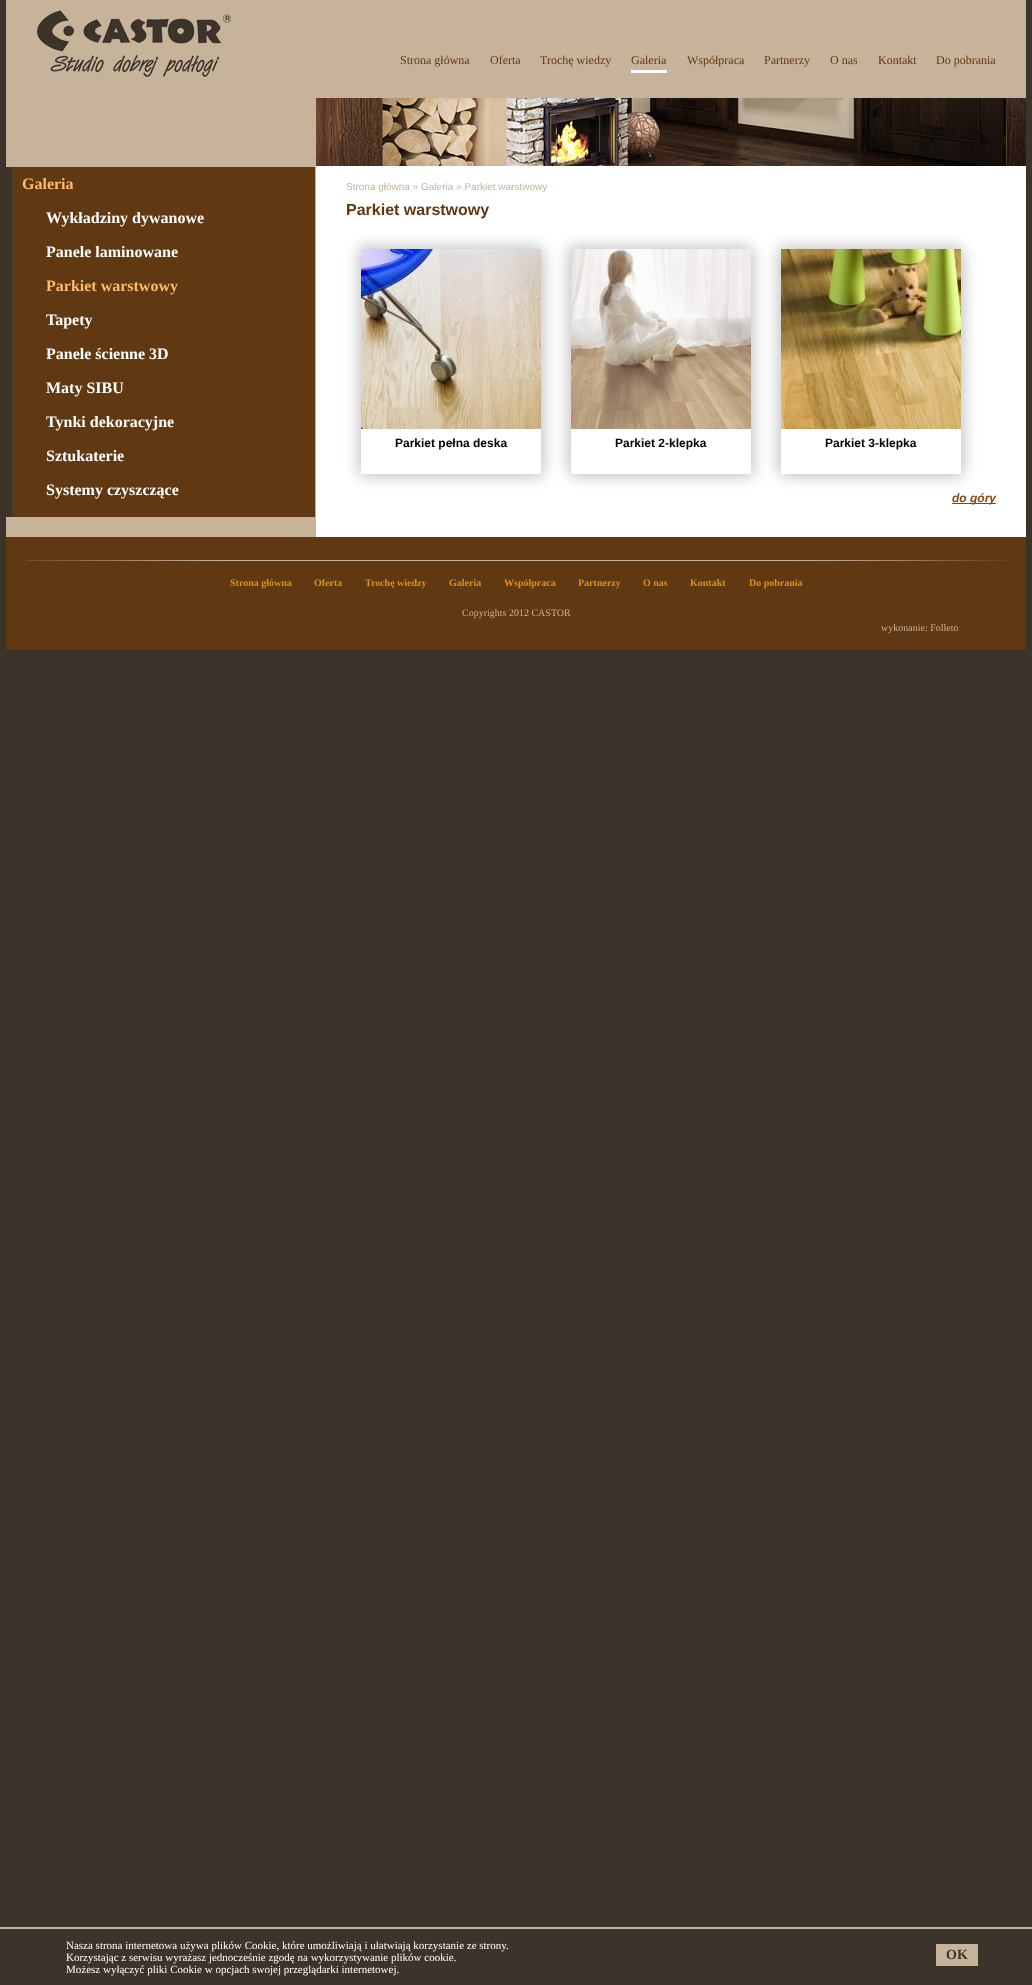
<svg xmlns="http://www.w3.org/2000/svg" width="1032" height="1985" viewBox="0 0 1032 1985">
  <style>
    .t1 { font: 12px Liberation Serif; fill: #603913; }
    .t2 { font: bold 16px Liberation Serif; fill: #ffba6b; }
    .t3 { font: bold 16px Liberation Serif; fill: #fff; }
    .t4 { font: 10px Liberation Sans; fill: #c7b29a; }
    .t5 { font: bold 16px Liberation Sans; fill: #603913; }
    .t6 { font: bold 12px Liberation Sans; fill: #000; }
    .t7 { font: italic bold 12px Liberation Sans; fill: #8b4513; }
    .t8 { font: bold 10px Liberation Serif; fill: #db9211; }
    .t9 { font: 10px Liberation Serif; fill: #c7b29a; }
    .t10 { font: 11px Liberation Serif; fill: #fff; }
    .t11 { font: bold 14px Liberation Serif; fill: #3c332b; }
  </style>
  <defs>
    <clipPath id="clip1"><path d="M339 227H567V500H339ZM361 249H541V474H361Z" clip-rule="evenodd"/></clipPath>
    <clipPath id="clip2"><path d="M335 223H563V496H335ZM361 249H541V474H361Z" clip-rule="evenodd"/></clipPath>
    <clipPath id="clip3"><path d="M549 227H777V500H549ZM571 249H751V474H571Z" clip-rule="evenodd"/></clipPath>
    <clipPath id="clip4"><path d="M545 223H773V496H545ZM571 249H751V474H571Z" clip-rule="evenodd"/></clipPath>
    <clipPath id="clip5"><path d="M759 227H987V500H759ZM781 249H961V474H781Z" clip-rule="evenodd"/></clipPath>
    <clipPath id="clip6"><path d="M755 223H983V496H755ZM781 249H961V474H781Z" clip-rule="evenodd"/></clipPath>
  </defs>
  <rect width="100%" height="100%" fill="#3c332b"/>
  <rect x="6" y="0" width="1020" height="537" fill="#c7b29a"/>
  <image x="37" y="10" width="194" height="67" href="images/1.png"/>
  <text x="400" y="64" class="t1">Strona główna</text>
  <text x="490" y="64" class="t1">Oferta</text>
  <text x="540" y="64" class="t1">Trochę wiedzy</text>
  <rect x="631" y="70" width="36" height="3" fill="#fff"/>
  <text x="631" y="64" class="t1">Galeria</text>
  <text x="687" y="64" class="t1">Współpraca</text>
  <text x="764" y="64" class="t1">Partnerzy</text>
  <text x="830" y="64" class="t1">O nas</text>
  <text x="878" y="64" class="t1">Kontakt</text>
  <text x="936" y="64" class="t1">Do pobrania</text>
  <rect x="316" y="166" width="710" height="371" fill="#fff"/>
  <image x="6" y="167" width="309" height="350" href="images/2.png"/>
  <text x="22" y="189" class="t2">Galeria</text>
  <text x="46" y="223" class="t3">Wykładziny dywanowe</text>
  <text x="46" y="257" class="t3">Panele laminowane</text>
  <text x="46" y="291" class="t2">Parkiet warstwowy</text>
  <text x="46" y="325" class="t3">Tapety</text>
  <text x="46" y="359" class="t3">Panele ścienne 3D</text>
  <text x="46" y="393" class="t3">Maty SIBU</text>
  <text x="46" y="427" class="t3">Tynki dekoracyjne</text>
  <text x="46" y="461" class="t3">Sztukaterie</text>
  <text x="46" y="495" class="t3">Systemy czyszczące</text>
  <image x="316" y="98" width="710" height="68" href="images/3.png"/>
  <text x="346" y="190" class="t4">Strona główna » Galeria » Parkiet warstwowy</text>
  <text x="346" y="215" class="t5">Parkiet warstwowy</text>
  <g clip-path="url(#clip1)">
    <rect x="363" y="251" width="180" height="225" fill="#ccc" filter="blur(7.5px)"/>
  </g>
  <g clip-path="url(#clip2)">
    <rect x="359" y="247" width="180" height="225" fill="#ccc" filter="blur(7.5px)"/>
  </g>
  <image x="361" y="249" width="180" height="180" href="images/4.png"/>
  <text x="395" y="447" class="t6">Parkiet pełna deska</text>
  <g clip-path="url(#clip3)">
    <rect x="573" y="251" width="180" height="225" fill="#ccc" filter="blur(7.5px)"/>
  </g>
  <g clip-path="url(#clip4)">
    <rect x="569" y="247" width="180" height="225" fill="#ccc" filter="blur(7.5px)"/>
  </g>
  <image x="571" y="249" width="180" height="180" href="images/5.png"/>
  <text x="615" y="447" class="t6">Parkiet 2-klepka</text>
  <g clip-path="url(#clip5)">
    <rect x="783" y="251" width="180" height="225" fill="#ccc" filter="blur(7.5px)"/>
  </g>
  <g clip-path="url(#clip6)">
    <rect x="779" y="247" width="180" height="225" fill="#ccc" filter="blur(7.5px)"/>
  </g>
  <image x="781" y="249" width="180" height="180" href="images/6.png"/>
  <text x="825" y="447" class="t6">Parkiet 3-klepka</text>
  <rect x="952" y="503" width="44" height="1" fill="#8b4513"/>
  <text x="952" y="502" class="t7">do góry</text>
  <rect x="6" y="537" width="1020" height="113" fill="#603913"/>
  <image x="26" y="560" width="980" height="1" href="images/7.png"/>
  <text x="230" y="586" class="t8">Strona główna</text>
  <text x="314" y="586" class="t8">Oferta</text>
  <text x="365" y="586" class="t8">Trochę wiedzy</text>
  <text x="449" y="586" class="t8">Galeria</text>
  <text x="504" y="586" class="t8">Współpraca</text>
  <text x="578" y="586" class="t8">Partnerzy</text>
  <text x="643" y="586" class="t8">O nas</text>
  <text x="690" y="586" class="t8">Kontakt</text>
  <text x="749" y="586" class="t8">Do pobrania</text>
  <text x="462" y="616" class="t9">Copyrights 2012 CASTOR</text>
  <text x="881" y="631" class="t9">wykonanie: Folleto</text>
  <rect x="0" y="1927" width="1032" height="2" fill="#c7b29a"/>
  <text x="66" y="1949" class="t10">Nasza strona internetowa używa plików Cookie, które umożliwiają i ułatwiają korzystanie ze strony.</text>
  <text x="66" y="1961" class="t10">Korzystając z serwisu wyrażasz jednocześnie zgodę na wykorzystywanie plików cookie.</text>
  <text x="66" y="1973" class="t10">Możesz wyłączyć pliki Cookie w opcjach swojej przeglądarki internetowej.</text>
  <rect x="936" y="1944" width="42" height="22" fill="#c7b29a"/>
  <text x="946" y="1959" class="t11">OK</text>
</svg>
